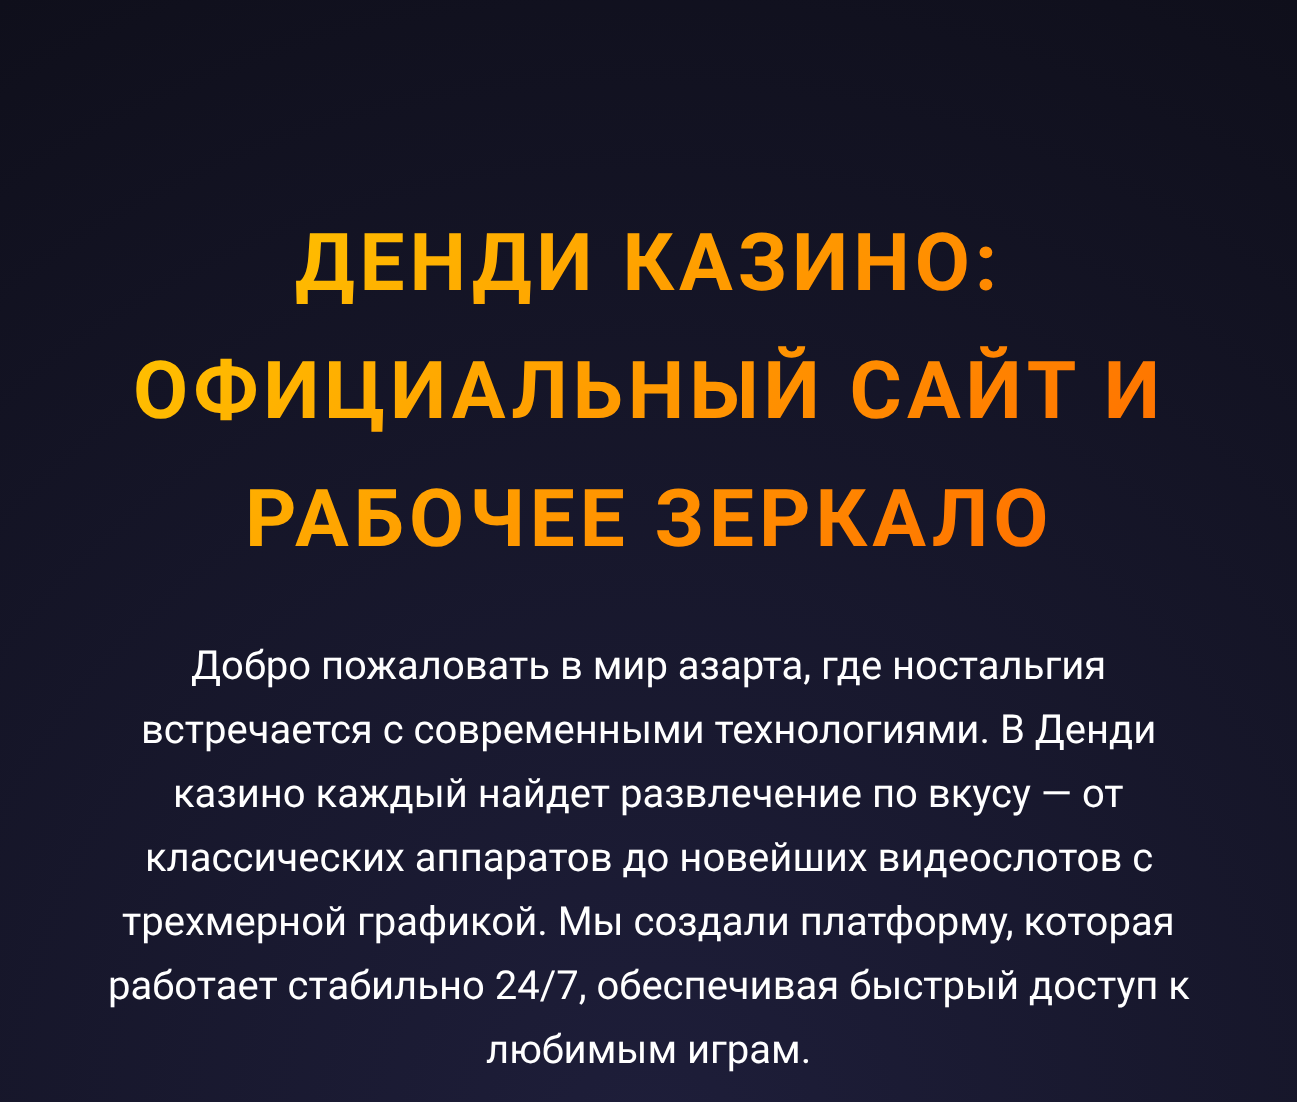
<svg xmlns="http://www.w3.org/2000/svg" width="1297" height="1102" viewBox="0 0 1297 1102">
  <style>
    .t1 { font: bold 80px Roboto; letter-spacing: 5px; fill: url(#g1); }
    .t2 { font: 40px Roboto; fill: #fff; }
  </style>
  <defs>
    <linearGradient id="g1" gradientUnits="userSpaceOnUse" x1="278" y1="22" x2="1019" y2="762"><stop offset="0" stop-color="#fc0"/><stop offset="1" stop-color="#f60"/></linearGradient>
    <radialGradient id="g2" gradientUnits="userSpaceOnUse" cx="649" cy="1143" r="1314"><stop offset="0" stop-color="#1e1e3a"/><stop offset="1" stop-color="#0f0f1b"/></radialGradient>
  </defs>
  <rect width="100%" height="100%" fill="#fff"/>
  <rect x="0" y="0" width="1297" height="1102" fill="url(#g2)"/>
  <text x="295" y="290" class="t1">ДЕНДИ КАЗИНО:</text>
  <text x="133" y="418" class="t1">ОФИЦИАЛЬНЫЙ САЙТ И</text>
  <text x="245" y="546" class="t1">РАБОЧЕЕ ЗЕРКАЛО</text>
  <text x="191" y="679" class="t2">Добро пожаловать в мир азарта, где ностальгия</text>
  <text x="141" y="743" class="t2">встречается с современными технологиями. В Денди</text>
  <text x="173" y="807" class="t2">казино каждый найдет развлечение по вкусу — от</text>
  <text x="145" y="871" class="t2">классических аппаратов до новейших видеослотов с</text>
  <text x="122" y="935" class="t2">трехмерной графикой. Мы создали платформу, которая</text>
  <text x="108" y="999" class="t2">работает стабильно 24/7, обеспечивая быстрый доступ к</text>
  <text x="486" y="1063" class="t2">любимым играм.</text>
</svg>
